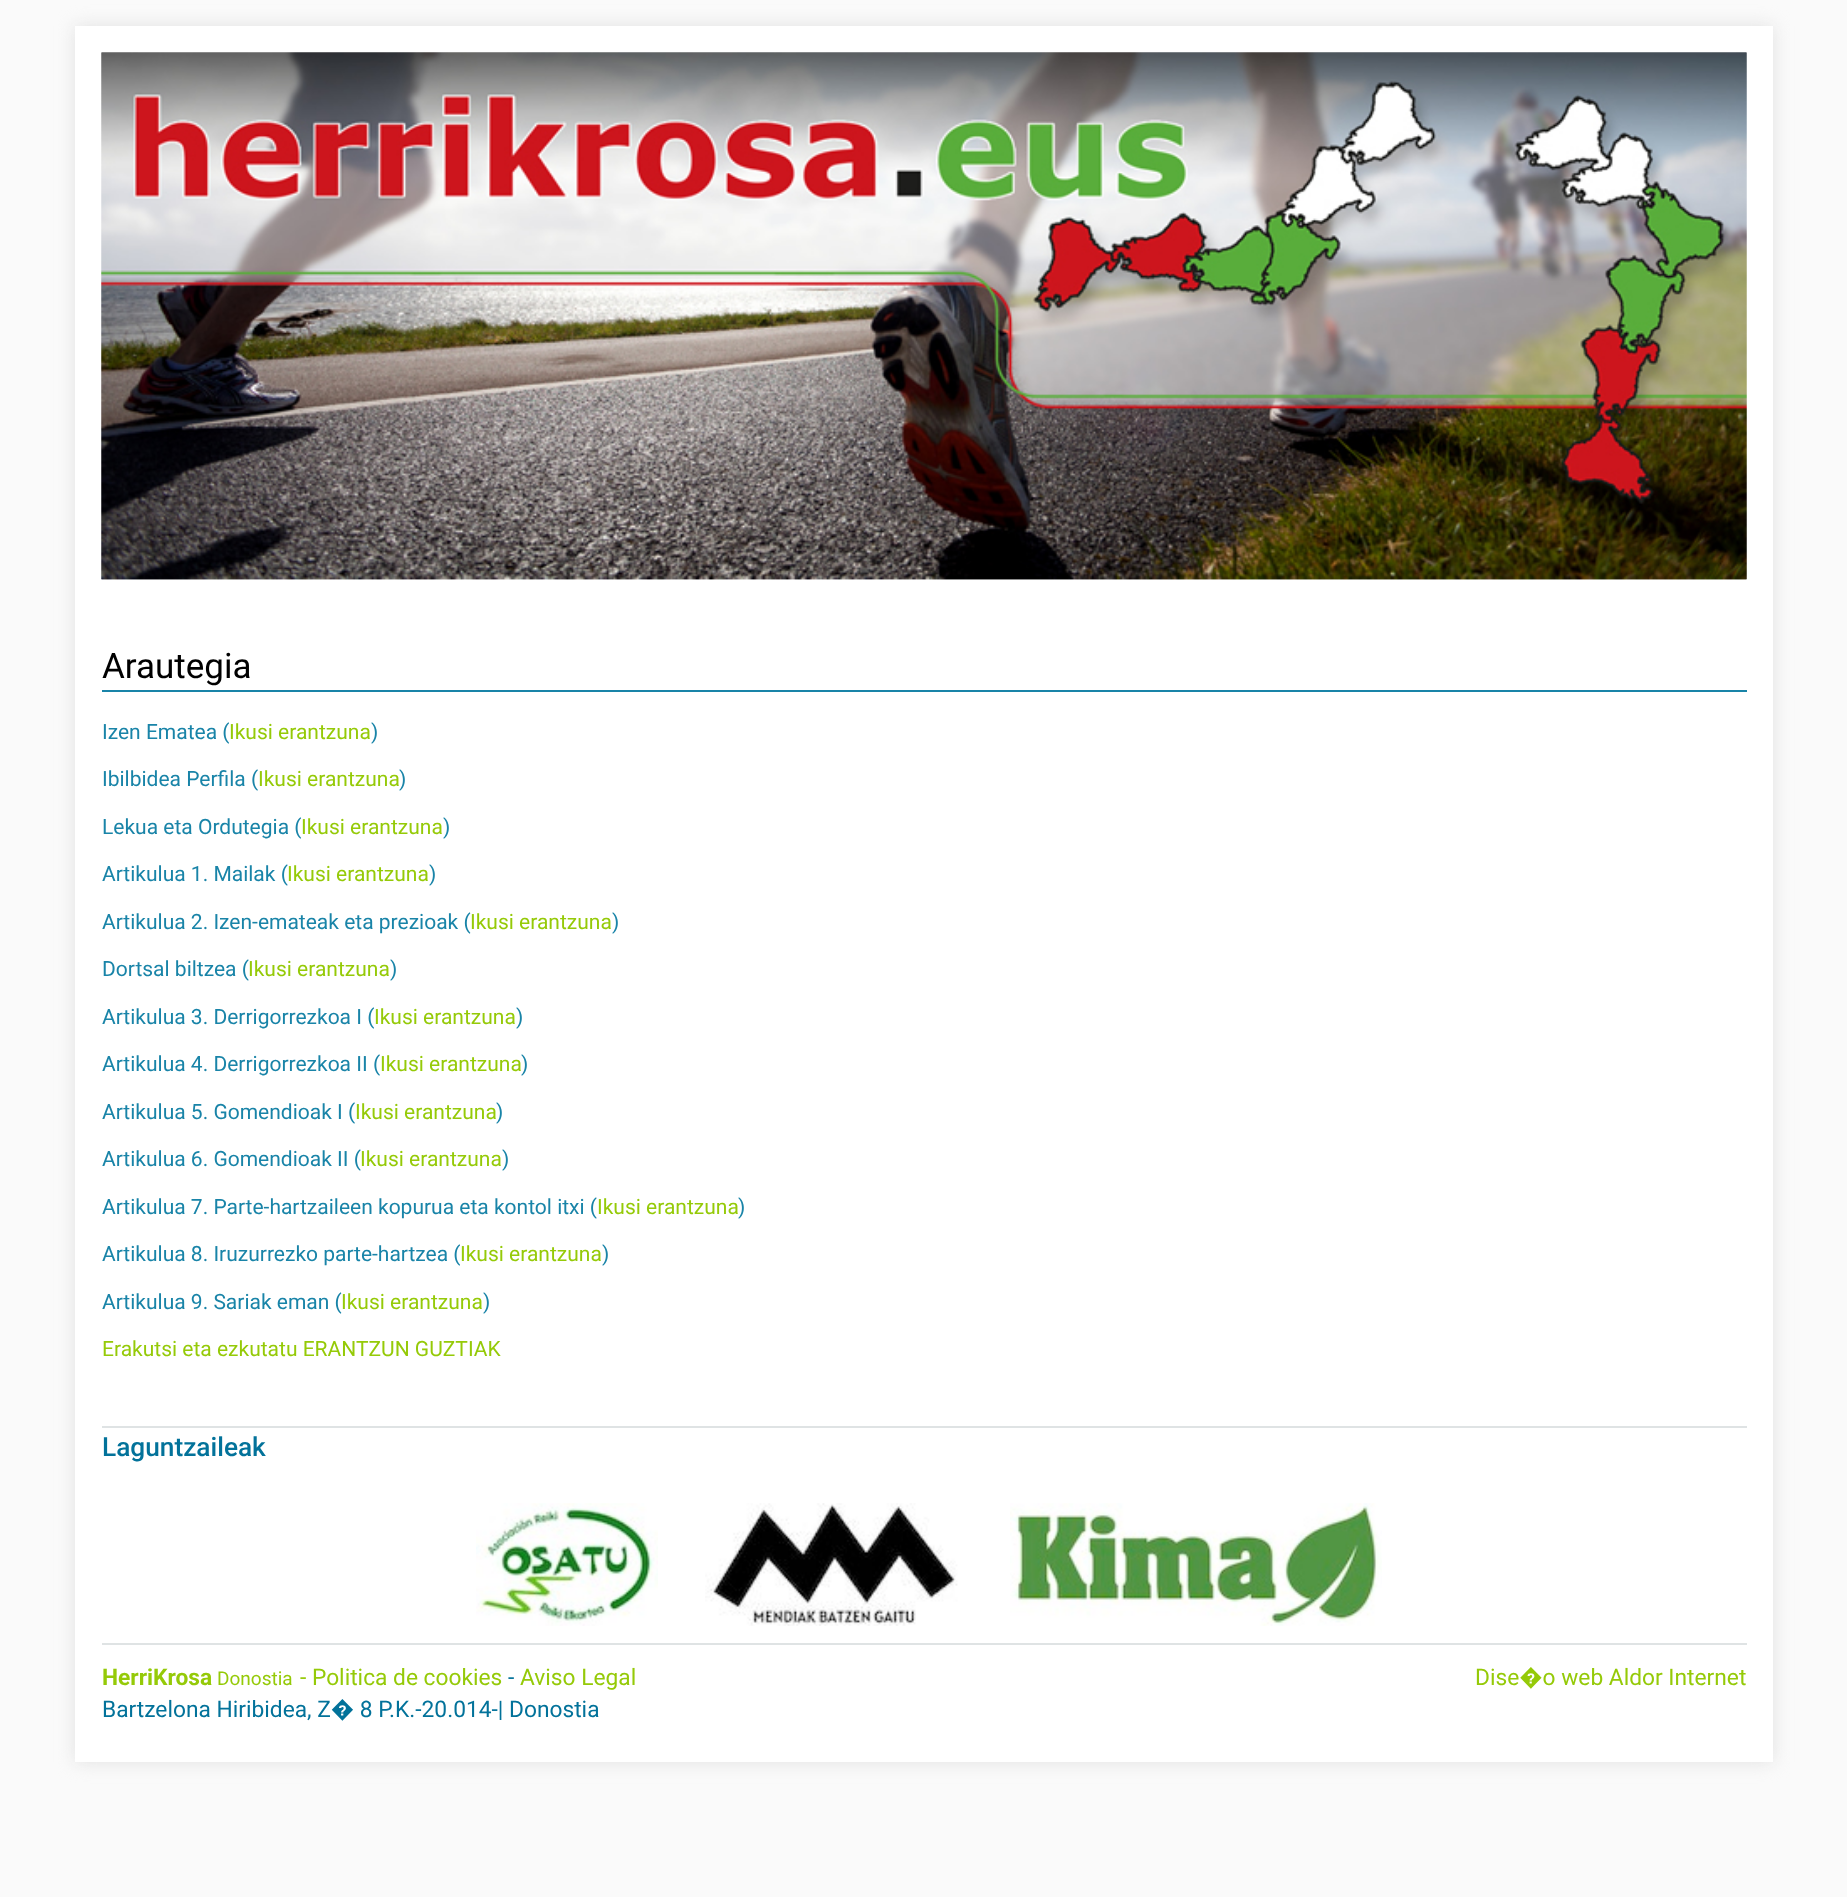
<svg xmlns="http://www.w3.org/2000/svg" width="1847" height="1897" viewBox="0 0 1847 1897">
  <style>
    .t1 { font: 35px Roboto; fill: #000; }
    .t2 { font: 21px Roboto; fill: #1984a8; }
    .t3 { font: 21px Roboto; fill: #95ca08; }
    .t4 { font: 500 26.25px Roboto; fill: #02729a; }
    .t5 { font: bold 22.75px Roboto; fill: #95ca08; }
    .t6 { font: 19px Roboto; fill: #95ca08; }
    .t7 { font: 22.75px Roboto; fill: #95ca08; }
    .t8 { font: 22.75px Roboto; fill: #02729a; }
  </style>
  <rect width="100%" height="100%" fill="#fafafa"/>
  <rect x="75" y="26" width="1698" height="1736" fill="#e1e1e1" filter="blur(9px)"/>
  <rect x="75" y="26" width="1698" height="1736" fill="#fff"/>
  <image x="101" y="52" width="1646" height="528" href="images/1.png"/>
  <image x="101" y="52" width="1646" height="528" href="images/2.png"/>
  <rect x="102" y="690" width="1645" height="2" fill="#1984a8"/>
  <text x="102" y="678" class="t1">Arautegia</text>
  <text x="102" y="739" class="t2">Izen Ematea (</text>
  <text x="229" y="739" class="t3">Ikusi erantzuna</text>
  <text x="371" y="739" class="t2">)</text>
  <text x="102" y="786" class="t2">Ibilbidea Perfila (</text>
  <text x="258" y="786" class="t3">Ikusi erantzuna</text>
  <text x="399" y="786" class="t2">)</text>
  <text x="102" y="834" class="t2">Lekua eta Ordutegia (</text>
  <text x="301" y="834" class="t3">Ikusi erantzuna</text>
  <text x="443" y="834" class="t2">)</text>
  <text x="102" y="881" class="t2">Artikulua 1. Mailak (</text>
  <text x="287" y="881" class="t3">Ikusi erantzuna</text>
  <text x="429" y="881" class="t2">)</text>
  <text x="102" y="929" class="t2">Artikulua 2. Izen-emateak eta prezioak (</text>
  <text x="470" y="929" class="t3">Ikusi erantzuna</text>
  <text x="612" y="929" class="t2">)</text>
  <text x="102" y="976" class="t2">Dortsal biltzea (</text>
  <text x="248" y="976" class="t3">Ikusi erantzuna</text>
  <text x="390" y="976" class="t2">)</text>
  <text x="102" y="1024" class="t2">Artikulua 3. Derrigorrezkoa I (</text>
  <text x="374" y="1024" class="t3">Ikusi erantzuna</text>
  <text x="516" y="1024" class="t2">)</text>
  <text x="102" y="1071" class="t2">Artikulua 4. Derrigorrezkoa II (</text>
  <text x="380" y="1071" class="t3">Ikusi erantzuna</text>
  <text x="521" y="1071" class="t2">)</text>
  <text x="102" y="1119" class="t2">Artikulua 5. Gomendioak I (</text>
  <text x="355" y="1119" class="t3">Ikusi erantzuna</text>
  <text x="496" y="1119" class="t2">)</text>
  <text x="102" y="1166" class="t2">Artikulua 6. Gomendioak II (</text>
  <text x="360" y="1166" class="t3">Ikusi erantzuna</text>
  <text x="502" y="1166" class="t2">)</text>
  <text x="102" y="1214" class="t2">Artikulua 7. Parte-hartzaileen kopurua eta kontol itxi (</text>
  <text x="597" y="1214" class="t3">Ikusi erantzuna</text>
  <text x="738" y="1214" class="t2">)</text>
  <text x="102" y="1261" class="t2">Artikulua 8. Iruzurrezko parte-hartzea (</text>
  <text x="460" y="1261" class="t3">Ikusi erantzuna</text>
  <text x="602" y="1261" class="t2">)</text>
  <text x="102" y="1309" class="t2">Artikulua 9. Sariak eman (</text>
  <text x="341" y="1309" class="t3">Ikusi erantzuna</text>
  <text x="483" y="1309" class="t2">)</text>
  <text x="102" y="1356" class="t3">Erakutsi eta ezkutatu ERANTZUN GUZTIAK</text>
  <rect x="102" y="1426" width="1645" height="2" fill="#dfe3e4"/>
  <rect x="102" y="1643" width="1645" height="2" fill="#dfe3e4"/>
  <text x="102" y="1456" class="t4">Laguntzaileak</text>
  <image x="476" y="1503" width="182" height="123" href="images/3.png"/>
  <image x="705" y="1503" width="253" height="123" href="images/4.png"/>
  <image x="1010" y="1503" width="372" height="123" href="images/5.png"/>
  <text x="102" y="1685" class="t5">HerriKrosa</text>
  <text x="217" y="1685" class="t6">Donostia</text>
  <text x="300" y="1685" class="t7">- Politica de cookies</text>
  <text x="508" y="1685" class="t8">-</text>
  <text x="520" y="1685" class="t7">Aviso Legal</text>
  <text x="102" y="1717" class="t8">Bartzelona Hiribidea, Z� 8 P.K.-20.014-| Donostia</text>
  <text x="1475" y="1685" class="t7">Dise�o web Aldor Internet</text>
</svg>
